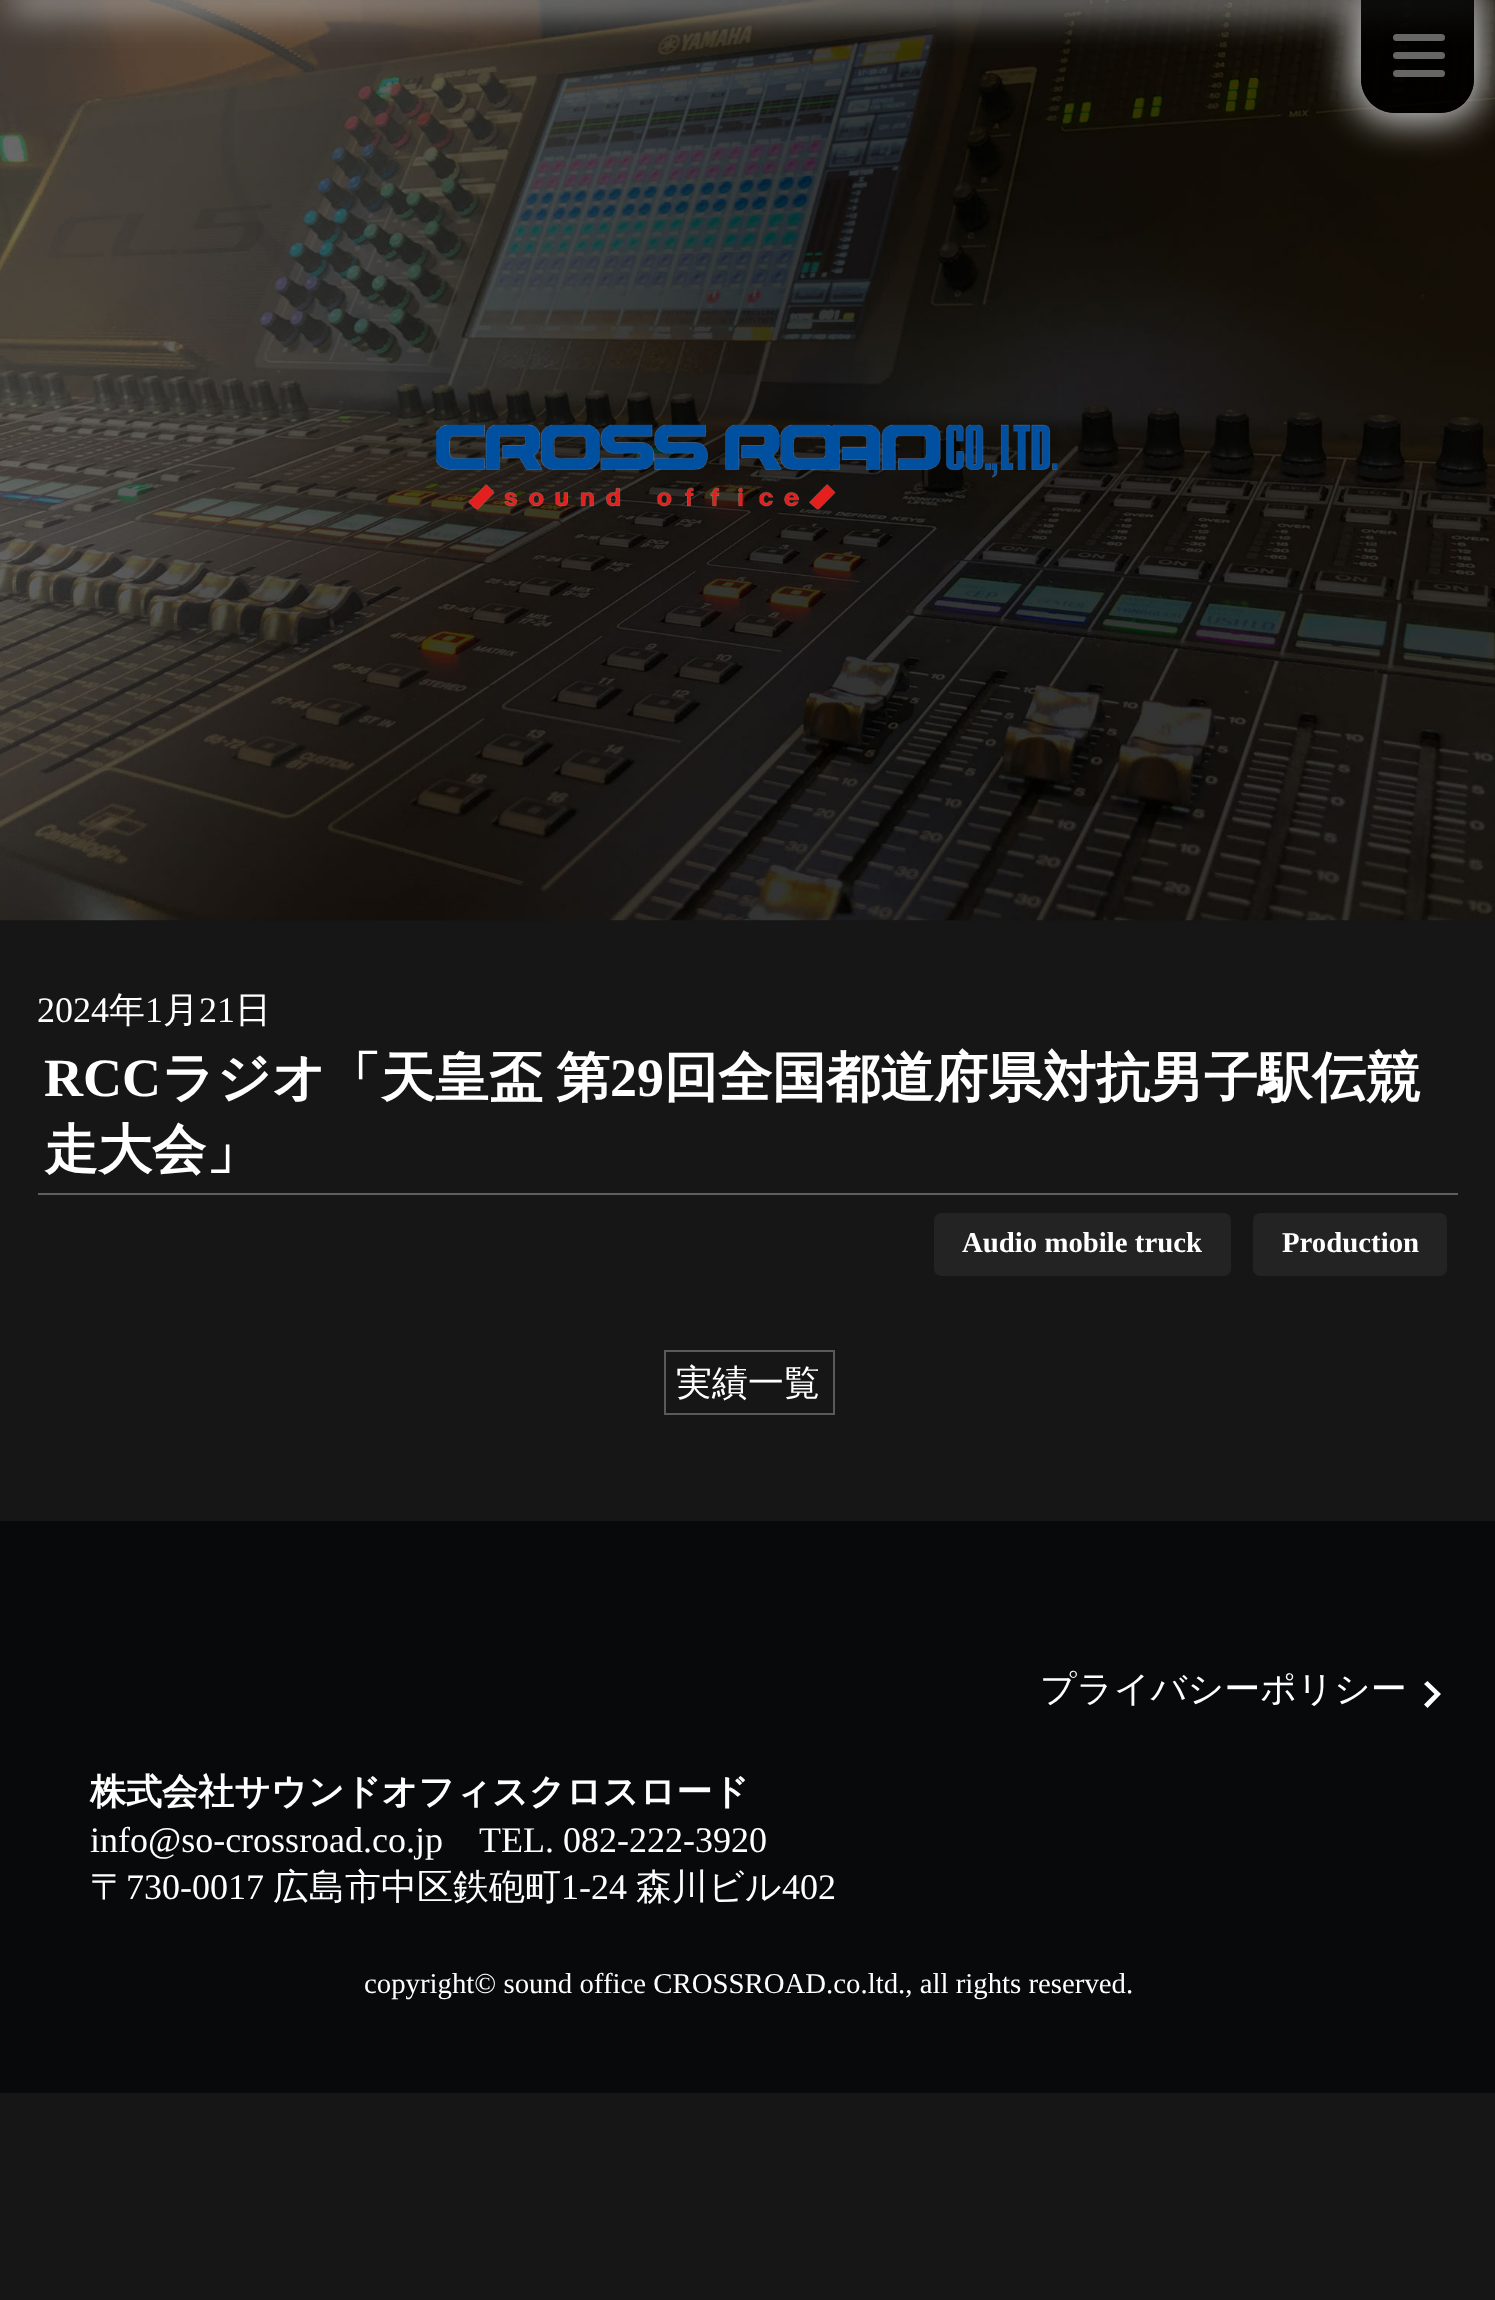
<svg xmlns="http://www.w3.org/2000/svg" width="1495" height="2300" viewBox="0 0 1495 2300">
  <style>
    .t1 { font: 36px Liberation Serif; fill: #fff; }
    .t2 { font: 500 36px WenQuanYi Zen Hei; fill: #fff; }
    .t3 { font: bold 54px Liberation Serif; fill: #fff; }
    .t4 { font: bold 54px WenQuanYi Zen Hei; fill: #fff; }
    .t5 { font: bold 28.8px Liberation Serif; fill: #fff; }
    .t6 { font: bold 36px WenQuanYi Zen Hei; fill: #fff; }
    .t7 { font: 28.8px Liberation Serif; fill: #fff; }
  </style>
  <defs>
    <clipPath id="clip1"><path d="M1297 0H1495V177H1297ZM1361 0H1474V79C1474 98 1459 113 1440 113H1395C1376 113 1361 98 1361 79Z" clip-rule="evenodd"/></clipPath>
  </defs>
  <rect width="100%" height="100%" fill="#161616"/>
  <image x="0" y="0" width="1495" height="921" href="images/1.png"/>
  <rect x="9" y="-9" width="1481" height="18" fill="#c9c9c9" filter="blur(18px)"/>
  <g clip-path="url(#clip1)">
    <rect x="1352" y="-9" width="131" height="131" rx="43" fill="#c9c9c9" filter="blur(18px)"/>
  </g>
  <path d="M1361 0H1474V79C1474 98 1459 113 1440 113H1395C1376 113 1361 98 1361 79Z" fill="#000000d9"/>
  <rect x="1393" y="34" width="52" height="7" rx="3.5" fill="#666"/>
  <rect x="1393" y="52" width="52" height="7" rx="3.5" fill="#666"/>
  <rect x="1393" y="70" width="52" height="7" rx="3.5" fill="#666"/>
  <image x="435" y="424" width="623" height="86" href="images/2.png"/>
  <text x="37" y="1022" class="t1">2024</text>
  <text x="109" y="1022" class="t2">年</text>
  <text x="145" y="1022" class="t1">1</text>
  <text x="163" y="1022" class="t2">月</text>
  <text x="199" y="1022" class="t1">21</text>
  <text x="235" y="1022" class="t2">日</text>
  <rect x="38" y="1193" width="1420" height="2" fill="#5f5f5f"/>
  <text x="44" y="1096" class="t3">RCC</text>
  <text x="161" y="1096" word-spacing="-3" class="t4">ラジオ「天皇盃 第</text>
  <text x="610" y="1096" class="t3">29</text>
  <text x="664" y="1096" class="t4">回全国都道府県対抗男子駅伝競</text>
  <text x="44" y="1168" class="t4">走大会」</text>
  <rect x="934" y="1213" width="297" height="63" rx="7" fill="#232323"/>
  <text x="962" y="1252" class="t5">Audio mobile truck</text>
  <rect x="1253" y="1213" width="194" height="63" rx="7" fill="#232323"/>
  <text x="1282" y="1252" class="t5">Production</text>
  <rect x="665" y="1351" width="169" height="63" fill="none" stroke="#5a5a5a" stroke-width="2"/>
  <text x="676" y="1395" class="t2">実績一覧</text>
  <rect x="0" y="1521" width="1495" height="572" fill="#08090a"/>
  <text x="1040" y="1701" class="t2">プライバシーポリシー</text>
  <path d="M1434.5 1694L1424 1684L1427.5 1681L1441 1694L1427.5 1708L1424 1704.5Z" fill="#fff"/>
  <text x="90" y="1804" class="t6">株式会社サウンドオフィスクロスロード</text>
  <text x="90" y="1852" class="t1">info@so-crossroad.co.jp</text>
  <text x="479" y="1852" class="t1">TEL. 082-222-3920</text>
  <text x="90" y="1899" class="t2">〒</text>
  <text x="126" y="1899" class="t1">730-0017</text>
  <text x="273" y="1899" class="t2">広島市中区鉄砲町</text>
  <text x="561" y="1899" class="t1">1-24</text>
  <text x="636" y="1899" class="t2">森川ビル</text>
  <text x="782" y="1899" class="t1">402</text>
  <text x="364" y="1993" class="t7">copyright© sound office CROSSROAD.co.ltd., all rights reserved.</text>
</svg>
